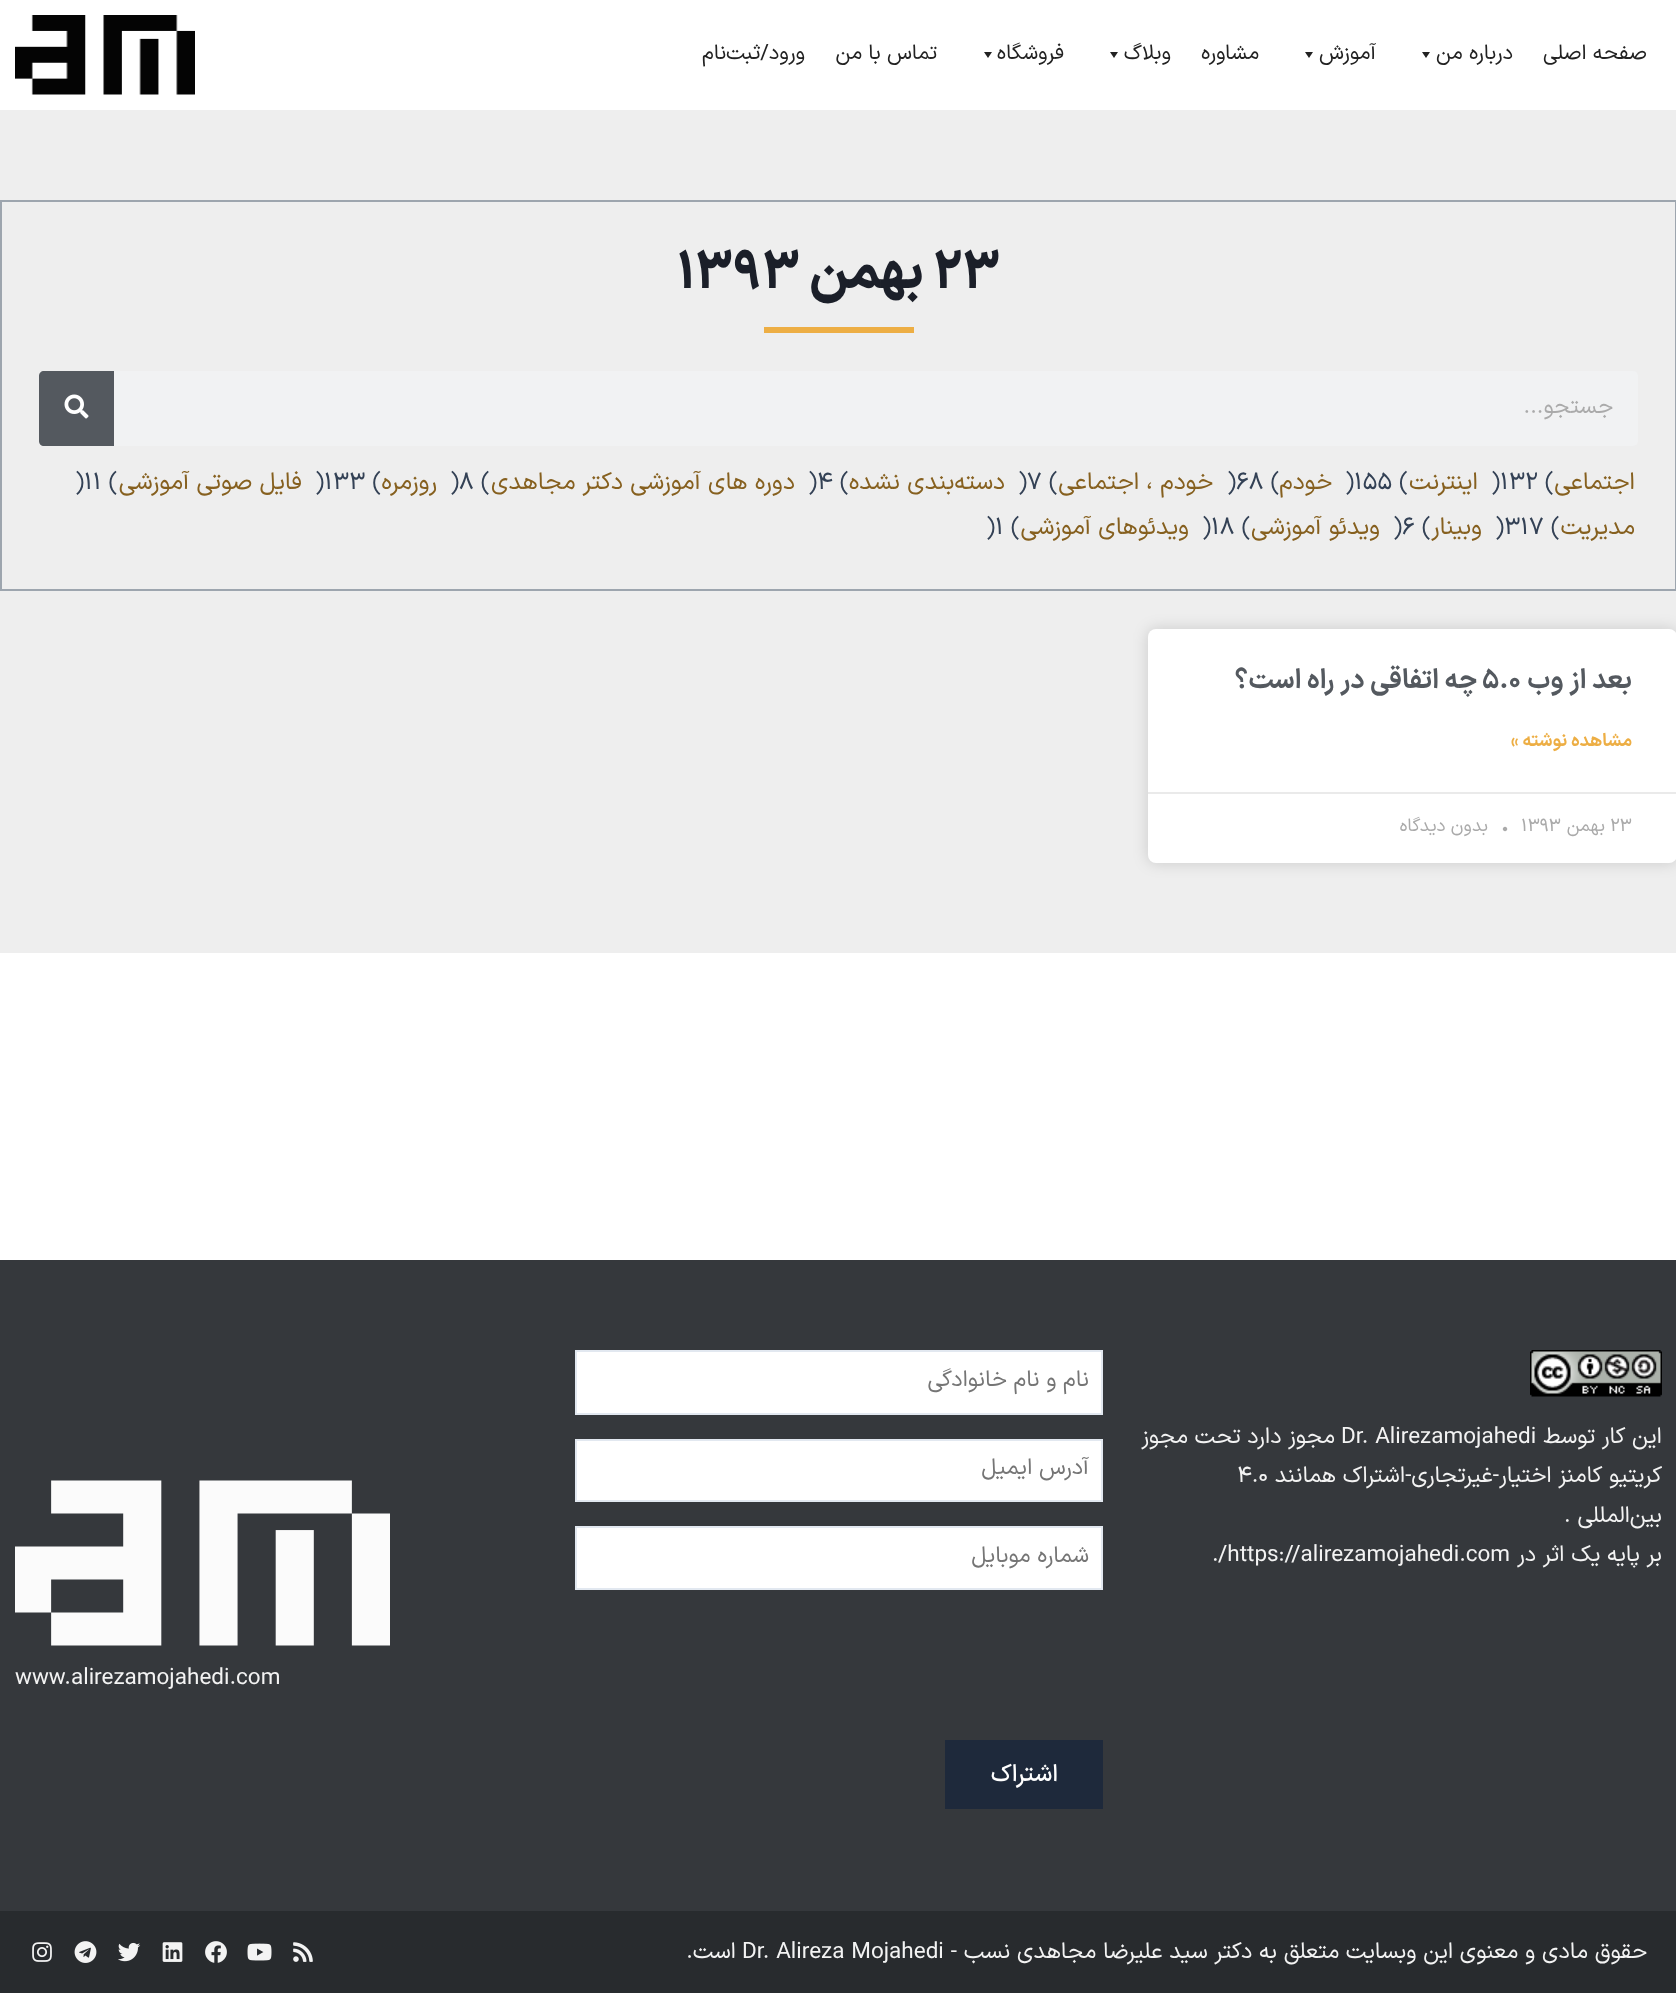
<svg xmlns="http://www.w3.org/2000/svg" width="1676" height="1993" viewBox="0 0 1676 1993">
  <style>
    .t1 { font: 21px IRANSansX; direction: rtl; fill: #222; }
    .t2 { font: 800 52.5px IRANSansX; fill: #1b1f29; }
    .t3 { font: 800 52.5px IRANSansX; direction: rtl; fill: #1b1f29; }
    .t4 { font: 22.5px IRANSansX; direction: rtl; fill: #aaa; }
    .t5 { font: 24px IRANSansX; direction: rtl; fill: #86601f; }
    .t6 { font: 24px IRANSansX; fill: #334155; }
    .t7 { font: bold 27px IRANSansX; direction: rtl; fill: #54595f; }
    .t8 { font: bold 27px IRANSansX; fill: #54595f; }
    .t9 { font: bold 18px IRANSansX; direction: rtl; fill: #edae44; }
    .t10 { font: 18px IRANSansX; fill: #aaa; }
    .t11 { font: 18px IRANSansX; direction: rtl; fill: #aaa; }
    .t12 { font: 22.5px IRANSansX; direction: rtl; fill: #f3f3f3; }
    .t13 { font: 22.5px IRANSansX; fill: #f3f3f3; }
    .t14 { font: 22.5px IRANSansX; direction: rtl; fill: #757575; }
    .t15 { font: 500 24px IRANSansX; direction: rtl; fill: #fff; }
  </style>
  <rect width="100%" height="100%" fill="#fff"/>
  <text x="1647" y="59" class="t1">صفحه اصلی</text>
  <text x="1513" y="59" class="t1">درباره من</text>
  <path d="M1430 52L1426 58L1422 52Z" fill="#222"/>
  <text x="1376" y="59" class="t1">آموزش</text>
  <path d="M1313 52L1309 58L1305 52Z" fill="#222"/>
  <text x="1259" y="59" class="t1">مشاوره</text>
  <text x="1171" y="59" class="t1">وبلاگ</text>
  <path d="M1118 52L1114 58L1110 52Z" fill="#222"/>
  <text x="1064" y="59" class="t1">فروشگاه</text>
  <path d="M992 52L988 58L984 52Z" fill="#222"/>
  <text x="937" y="59" class="t1">تماس با من</text>
  <text x="805" y="59" class="t1">ورود/ثبت‌نام</text>
  <image x="15" y="15" width="180" height="80" href="images/1.png"/>
  <rect x="0" y="110" width="1676" height="843" fill="#eee"/>
  <rect x="1" y="201" width="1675" height="389" fill="none" stroke="#9da5ae" stroke-width="2"/>
  <text x="933" y="288" class="t2">۲۳</text>
  <text x="924" y="288" class="t3">بهمن</text>
  <text x="677" y="288" class="t2">۱۳۹۳</text>
  <rect x="764" y="327" width="150" height="6" fill="#edae44"/>
  <rect x="39" y="371" width="1599" height="75" rx="5" fill="#f1f2f3"/>
  <text x="1613" y="413" class="t4">جستجو...</text>
  <path d="M44 371H114V446H44C41 446 39 444 39 441V376C39 373 41 371 44 371Z" fill="#54595f"/>
  <image x="64" y="394" width="25" height="25" href="images/2.png"/>
  <text x="1635" y="489" class="t5">اجتماعی</text>
  <text x="1491" y="489" class="t6">)۱۳۲ (</text>
  <text x="1478" y="489" class="t5">اینترنت</text>
  <text x="1345" y="489" class="t6">)۱۵۵ (</text>
  <text x="1332" y="489" class="t5">خودم</text>
  <text x="1227" y="489" class="t6">)۶۸ (</text>
  <text x="1213" y="489" class="t5">خودم ، اجتماعی</text>
  <text x="1018" y="489" class="t6">)۷ (</text>
  <text x="1005" y="489" class="t5">دسته‌بندی نشده</text>
  <text x="808" y="489" class="t6">)۴ (</text>
  <text x="795" y="489" class="t5">دوره های آموزشی دکتر مجاهدی</text>
  <text x="450" y="489" class="t6">)۸ (</text>
  <text x="437" y="489" class="t5">روزمره</text>
  <text x="315" y="489" class="t6">)۱۳۳ (</text>
  <text x="302" y="489" class="t5">فایل صوتی آموزشی</text>
  <text x="75" y="489" class="t6">)۱۱ (</text>
  <text x="1635" y="534" class="t5">مدیریت</text>
  <text x="1495" y="534" class="t6">)۳۱۷ (</text>
  <text x="1482" y="534" class="t5">وبینار</text>
  <text x="1393" y="534" class="t6">)۶ (</text>
  <text x="1380" y="534" class="t5">ویدئو آموزشی</text>
  <text x="1202" y="534" class="t6">)۱۸ (</text>
  <text x="1189" y="534" class="t5">ویدئوهای آموزشی</text>
  <text x="986" y="534" class="t6">)۱ (</text>
  <rect x="1148" y="629" width="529" height="234" rx="8" fill="#00000026" filter="blur(7.5px)"/>
  <rect x="1148" y="629" width="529" height="234" rx="8" fill="#fff"/>
  <text x="1632" y="688" class="t7">بعد از وب</text>
  <text x="1482" y="688" class="t8">۵.۰</text>
  <text x="1477" y="688" class="t7">چه اتفاقی در راه است؟</text>
  <text x="1632" y="746" class="t9">مشاهده نوشته »</text>
  <rect x="1148" y="792" width="528" height="2" fill="#eaeaea"/>
  <text x="1610" y="831" class="t10">۲۳</text>
  <text x="1605" y="831" class="t11">بهمن</text>
  <text x="1521" y="831" class="t10">۱۳۹۳</text>
  <text x="1501" y="831" class="t10">•</text>
  <text x="1488" y="831" class="t11">بدون دیدگاه</text>
  <rect x="0" y="1260" width="1676" height="651" fill="#35383c"/>
  <image x="1530" y="1350" width="132" height="47" href="images/3.png"/>
  <text x="1662" y="1443" class="t12">این کار توسط</text>
  <text x="1341" y="1443" class="t13">Dr. Alirezamojahedi</text>
  <text x="1335" y="1443" class="t12">مجوز دارد تحت</text>
  <text x="1188" y="1443" class="t12">مجوز</text>
  <text x="1662" y="1482" class="t12">کریتیو کامنز اختیار-غیرتجاری-اشتراک همانند</text>
  <text x="1237" y="1482" class="t13">۴.۰</text>
  <text x="1662" y="1522" class="t12">بین‌المللی</text>
  <text x="1564" y="1522" class="t13">.</text>
  <text x="1662" y="1561" class="t12">بر پایه یک اثر در</text>
  <text x="1218" y="1561" class="t13">/https://alirezamojahedi.com</text>
  <text x="1212" y="1561" class="t13">.</text>
  <rect x="576" y="1351" width="526" height="63" fill="#fff" stroke="#e2e8f0" stroke-width="2"/>
  <text x="1089" y="1386" class="t14">نام و نام خانوادگی</text>
  <rect x="576" y="1440" width="526" height="61" fill="#fff" stroke="#e2e8f0" stroke-width="2"/>
  <text x="1089" y="1474" class="t14">آدرس ایمیل</text>
  <rect x="576" y="1527" width="526" height="62" fill="#fff" stroke="#e2e8f0" stroke-width="2"/>
  <text x="1089" y="1562" class="t14">شماره موبایل</text>
  <rect x="945" y="1740" width="158" height="69" fill="#1e293b"/>
  <text x="1058" y="1781" class="t15">اشتراک</text>
  <image x="15" y="1480" width="375" height="166" href="images/4.png"/>
  <text x="15" y="1684" class="t13">www.alirezamojahedi.com</text>
  <rect x="0" y="1911" width="1676" height="82" fill="#282b2e"/>
  <text x="1647" y="1958" class="t12">حقوق مادی و معنوی این وبسایت متعلق به دکتر سید علیرضا مجاهدی نسب -</text>
  <text x="742" y="1958" class="t13">Dr. Alireza Mojahedi</text>
  <text x="736" y="1958" class="t12">است.</text>
  <image x="293" y="1942" width="20" height="20" href="images/5.png"/>
  <image x="247" y="1943" width="25" height="18" href="images/6.png"/>
  <image x="205" y="1941" width="22" height="22" href="images/7.png"/>
  <image x="162" y="1942" width="21" height="20" href="images/8.png"/>
  <image x="118" y="1942" width="23" height="20" href="images/9.png"/>
  <image x="74" y="1941" width="23" height="22" href="images/10.png"/>
  <image x="32" y="1942" width="20" height="20" href="images/11.png"/>
</svg>
